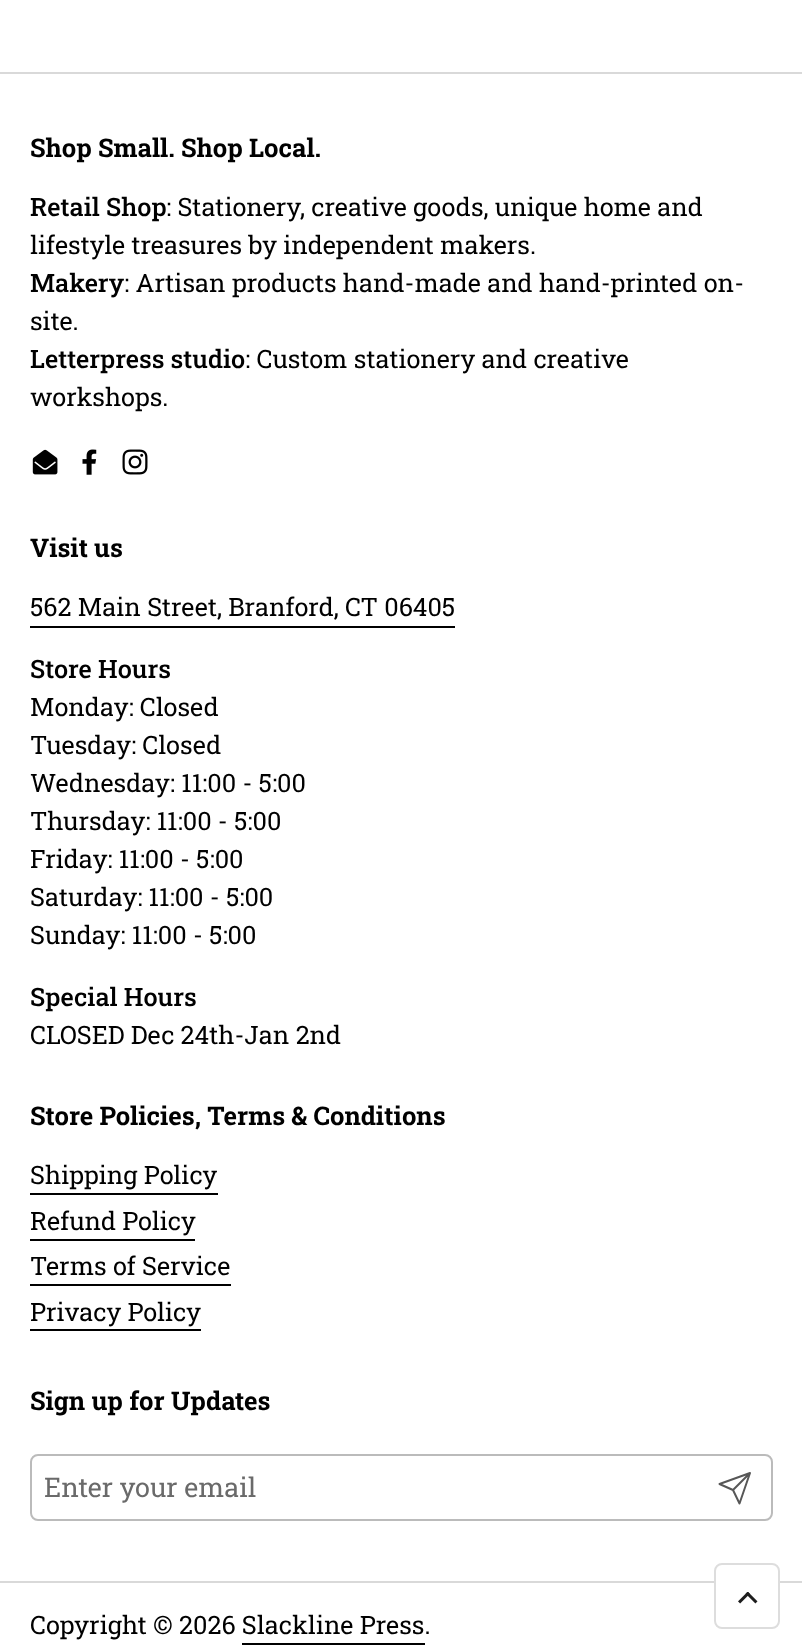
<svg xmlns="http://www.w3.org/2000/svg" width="802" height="1651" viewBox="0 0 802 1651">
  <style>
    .t1 { font: bold 25.6px Roboto Slab; fill: #000; }
    .t2 { font: 500 25.3px Roboto Slab; fill: #000; }
    .t3 { font: 25.3px Roboto Slab; fill: #000; }
    .t4 { font: 27px Roboto Slab; fill: #6a6a6a; }
  </style>
  <rect width="100%" height="100%" fill="#fff"/>
  <rect x="0" y="72" width="802" height="2" fill="#d9d9d9"/>
  <text x="30" y="157" class="t1">Shop Small. Shop Local.</text>
  <text x="30" y="216" class="t2">Retail Shop</text>
  <text x="166" y="216" class="t3">: Stationery, creative goods, unique home and</text>
  <text x="30" y="254" class="t3">lifestyle treasures by independent makers.</text>
  <text x="30" y="292" class="t2">Makery</text>
  <text x="124" y="292" class="t3">: Artisan products hand-made and hand-printed on-</text>
  <text x="30" y="330" class="t3">site.</text>
  <text x="30" y="368" class="t2">Letterpress studio</text>
  <text x="245" y="368" class="t3">: Custom stationery and creative</text>
  <text x="30" y="406" class="t3">workshops.</text>
  <image x="32" y="449" width="26" height="26" href="images/1.png"/>
  <image x="82" y="449" width="15" height="26" href="images/2.png"/>
  <image x="122" y="449" width="26" height="26" href="images/3.png"/>
  <text x="30" y="557" class="t1">Visit us</text>
  <text x="30" y="616" class="t3">562 Main Street, Branford, CT 06405</text>
  <rect x="30" y="626" width="425" height="2" fill="#000"/>
  <text x="30" y="678" class="t2">Store Hours</text>
  <text x="30" y="716" class="t3">Monday: Closed</text>
  <text x="30" y="754" class="t3">Tuesday: Closed</text>
  <text x="30" y="792" class="t3">Wednesday: 11:00 - 5:00</text>
  <text x="30" y="830" class="t3">Thursday: 11:00 - 5:00</text>
  <text x="30" y="868" class="t3">Friday: 11:00 - 5:00</text>
  <text x="30" y="906" class="t3">Saturday: 11:00 - 5:00</text>
  <text x="30" y="944" class="t3">Sunday: 11:00 - 5:00</text>
  <text x="30" y="1006" class="t2">Special Hours</text>
  <text x="30" y="1044" class="t3">CLOSED Dec 24th-Jan 2nd</text>
  <text x="30" y="1125" class="t1">Store Policies, Terms &amp; Conditions</text>
  <text x="30" y="1184" class="t3">Shipping Policy</text>
  <rect x="30" y="1193" width="188" height="2" fill="#000"/>
  <text x="30" y="1230" class="t3">Refund Policy</text>
  <rect x="30" y="1239" width="165" height="2" fill="#000"/>
  <text x="30" y="1275" class="t3">Terms of Service</text>
  <rect x="30" y="1284" width="201" height="2" fill="#000"/>
  <text x="30" y="1321" class="t3">Privacy Policy</text>
  <rect x="30" y="1329" width="171" height="2" fill="#000"/>
  <text x="30" y="1410" class="t1">Sign up for Updates</text>
  <rect x="31" y="1455" width="741" height="65" rx="7" fill="none" stroke="#bbb" stroke-width="2"/>
  <text x="44" y="1497" class="t4">Enter your email</text>
  <path d="M750 1473L733 1490M750 1473L739.5 1503.5L733 1490L719.5 1484Z" fill="none" stroke="#575757" stroke-width="2" stroke-linecap="round" stroke-linejoin="round"/>
  <rect x="0" y="1581" width="802" height="2" fill="#d9d9d9"/>
  <text x="30" y="1634" class="t3">Copyright © 2026 Slackline Press.</text>
  <rect x="242" y="1643" width="183" height="2" fill="#000"/>
  <rect x="715" y="1564" width="64" height="64" rx="7" fill="#fff" stroke="#ddd" stroke-width="2"/>
  <image x="738" y="1592" width="20" height="12" href="images/4.png"/>
</svg>
